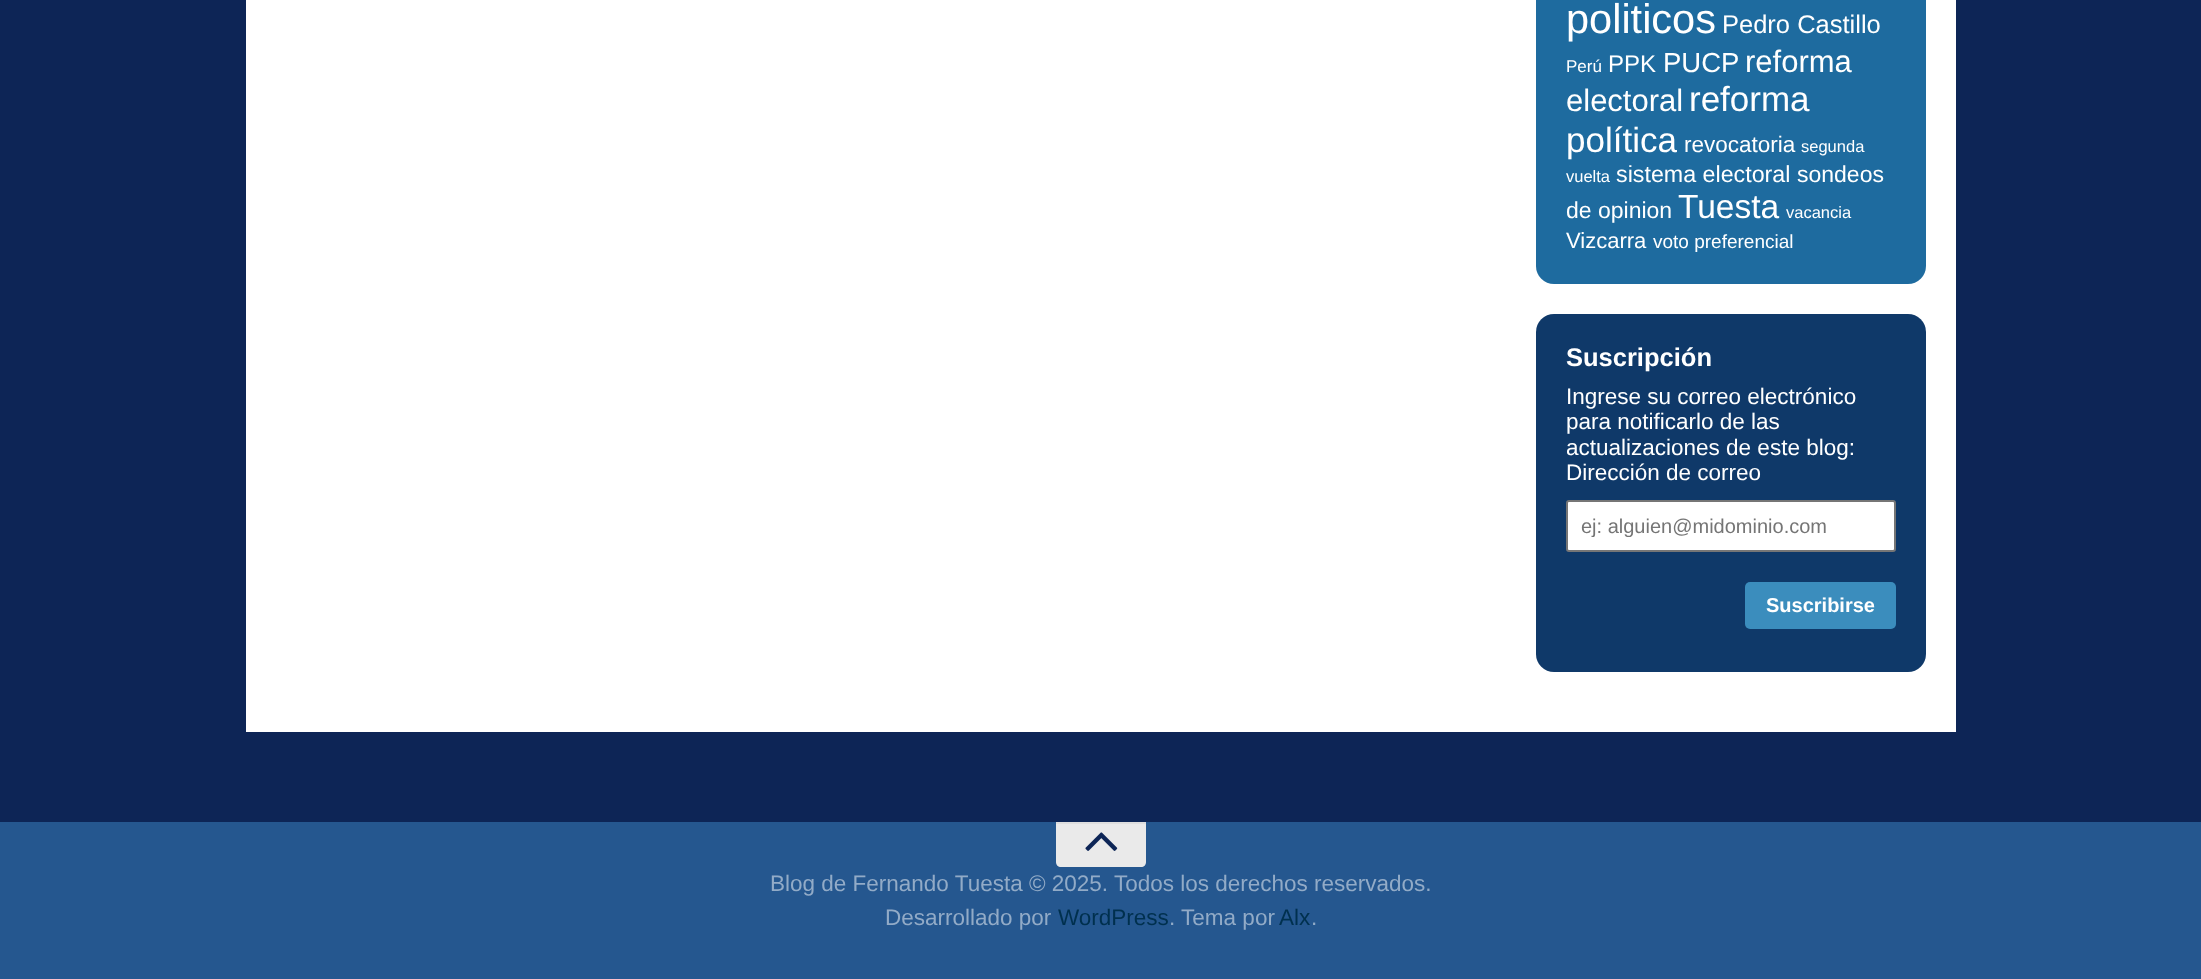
<svg xmlns="http://www.w3.org/2000/svg" width="2201" height="979" viewBox="0 0 2201 979">
  <style>
    .t1 { font: 41.5px Liberation Sans; fill: #fff; }
    .t2 { font: 25.5px Liberation Sans; fill: #fff; }
    .t3 { font: 17px Liberation Sans; fill: #fff; }
    .t4 { font: 24px Liberation Sans; fill: #fff; }
    .t5 { font: 27.5px Liberation Sans; fill: #fff; }
    .t6 { font: 31px Liberation Sans; fill: #fff; }
    .t7 { font: 35px Liberation Sans; fill: #fff; }
    .t8 { font: 22.5px Liberation Sans; fill: #fff; }
    .t9 { font: 16.5px Liberation Sans; fill: #fff; }
    .t10 { font: 23.25px Liberation Sans; fill: #fff; }
    .t11 { font: 23px Liberation Sans; fill: #fff; }
    .t12 { font: 33.5px Liberation Sans; fill: #fff; }
    .t13 { font: 22px Liberation Sans; fill: #fff; }
    .t14 { font: 19px Liberation Sans; fill: #fff; }
    .t15 { font: bold 25.5px Liberation Sans; fill: #fff; }
    .t16 { font: 20px Liberation Sans; fill: #757575; }
    .t17 { font: bold 20px Liberation Sans; fill: #fff; }
    .t18 { font: 22.5px Liberation Sans; fill: #92abc7; }
    .t19 { font: 22.5px Liberation Sans; fill: #00304e; }
  </style>
  <defs>
    <clipPath id="clip1"><rect x="1581" y="515" width="300" height="22"/></clipPath>
  </defs>
  <rect width="100%" height="100%" fill="#0d2556"/>
  <rect x="246" y="0" width="1710" height="732" fill="#fff"/>
  <rect x="1536" y="-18" width="390" height="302" rx="18" fill="#1e6b9f"/>
  <text x="1566" y="33" class="t1">politicos</text>
  <text x="1722" y="33" class="t2">Pedro Castillo</text>
  <text x="1566" y="72" class="t3">Perú</text>
  <text x="1608" y="72" class="t4">PPK</text>
  <text x="1663" y="72" class="t5">PUCP</text>
  <text x="1745" y="72" class="t6">reforma</text>
  <text x="1566" y="111" class="t6">electoral</text>
  <text x="1689" y="111" class="t7">reforma</text>
  <text x="1566" y="152" class="t7">política</text>
  <text x="1684" y="152" class="t8">revocatoria</text>
  <text x="1801" y="152" class="t9">segunda</text>
  <text x="1566" y="182" class="t9">vuelta</text>
  <text x="1616" y="182" class="t10">sistema electoral</text>
  <text x="1797" y="182" class="t11">sondeos</text>
  <text x="1566" y="218" class="t11">de opinion</text>
  <text x="1678" y="218" class="t12">Tuesta</text>
  <text x="1786" y="218" class="t9">vacancia</text>
  <text x="1566" y="248" class="t13">Vizcarra</text>
  <text x="1653" y="248" class="t14">voto preferencial</text>
  <rect x="1536" y="314" width="390" height="358" rx="18" fill="#0f3969"/>
  <text x="1566" y="366" class="t15">Suscripción</text>
  <text x="1566" y="404" class="t8">Ingrese su correo electrónico</text>
  <text x="1566" y="429" class="t8">para notificarlo de las</text>
  <text x="1566" y="455" class="t8">actualizaciones de este blog:</text>
  <text x="1566" y="480" class="t8">Dirección de correo</text>
  <rect x="1567" y="501" width="328" height="50" rx="2" fill="#fff" stroke="#767676" stroke-width="2"/>
  <g clip-path="url(#clip1)">
    <text x="1581" y="533" class="t16">ej: alguien@midominio.com</text>
  </g>
  <rect x="1745" y="582" width="151" height="47" rx="5" fill="#3b8dbd"/>
  <text x="1766" y="612" class="t17">Suscribirse</text>
  <rect x="0" y="822" width="2201" height="157" fill="#25578f"/>
  <path d="M1056 822H1146V862C1146 865 1144 867 1141 867H1061C1058 867 1056 865 1056 862Z" fill="#eaeaea"/>
  <rect x="1056" y="822" width="90" height="2" fill="#dedede"/>
  <image x="1085" y="832" width="33" height="19" href="images/1.png"/>
  <text x="770" y="891" class="t18">Blog de Fernando Tuesta © 2025. Todos los derechos reservados.</text>
  <text x="885" y="925" class="t18">Desarrollado por</text>
  <text x="1058" y="925" class="t19">WordPress</text>
  <text x="1169" y="925" class="t18">. Tema por</text>
  <text x="1279" y="925" class="t19">Alx</text>
  <text x="1311" y="925" class="t18">.</text>
</svg>
